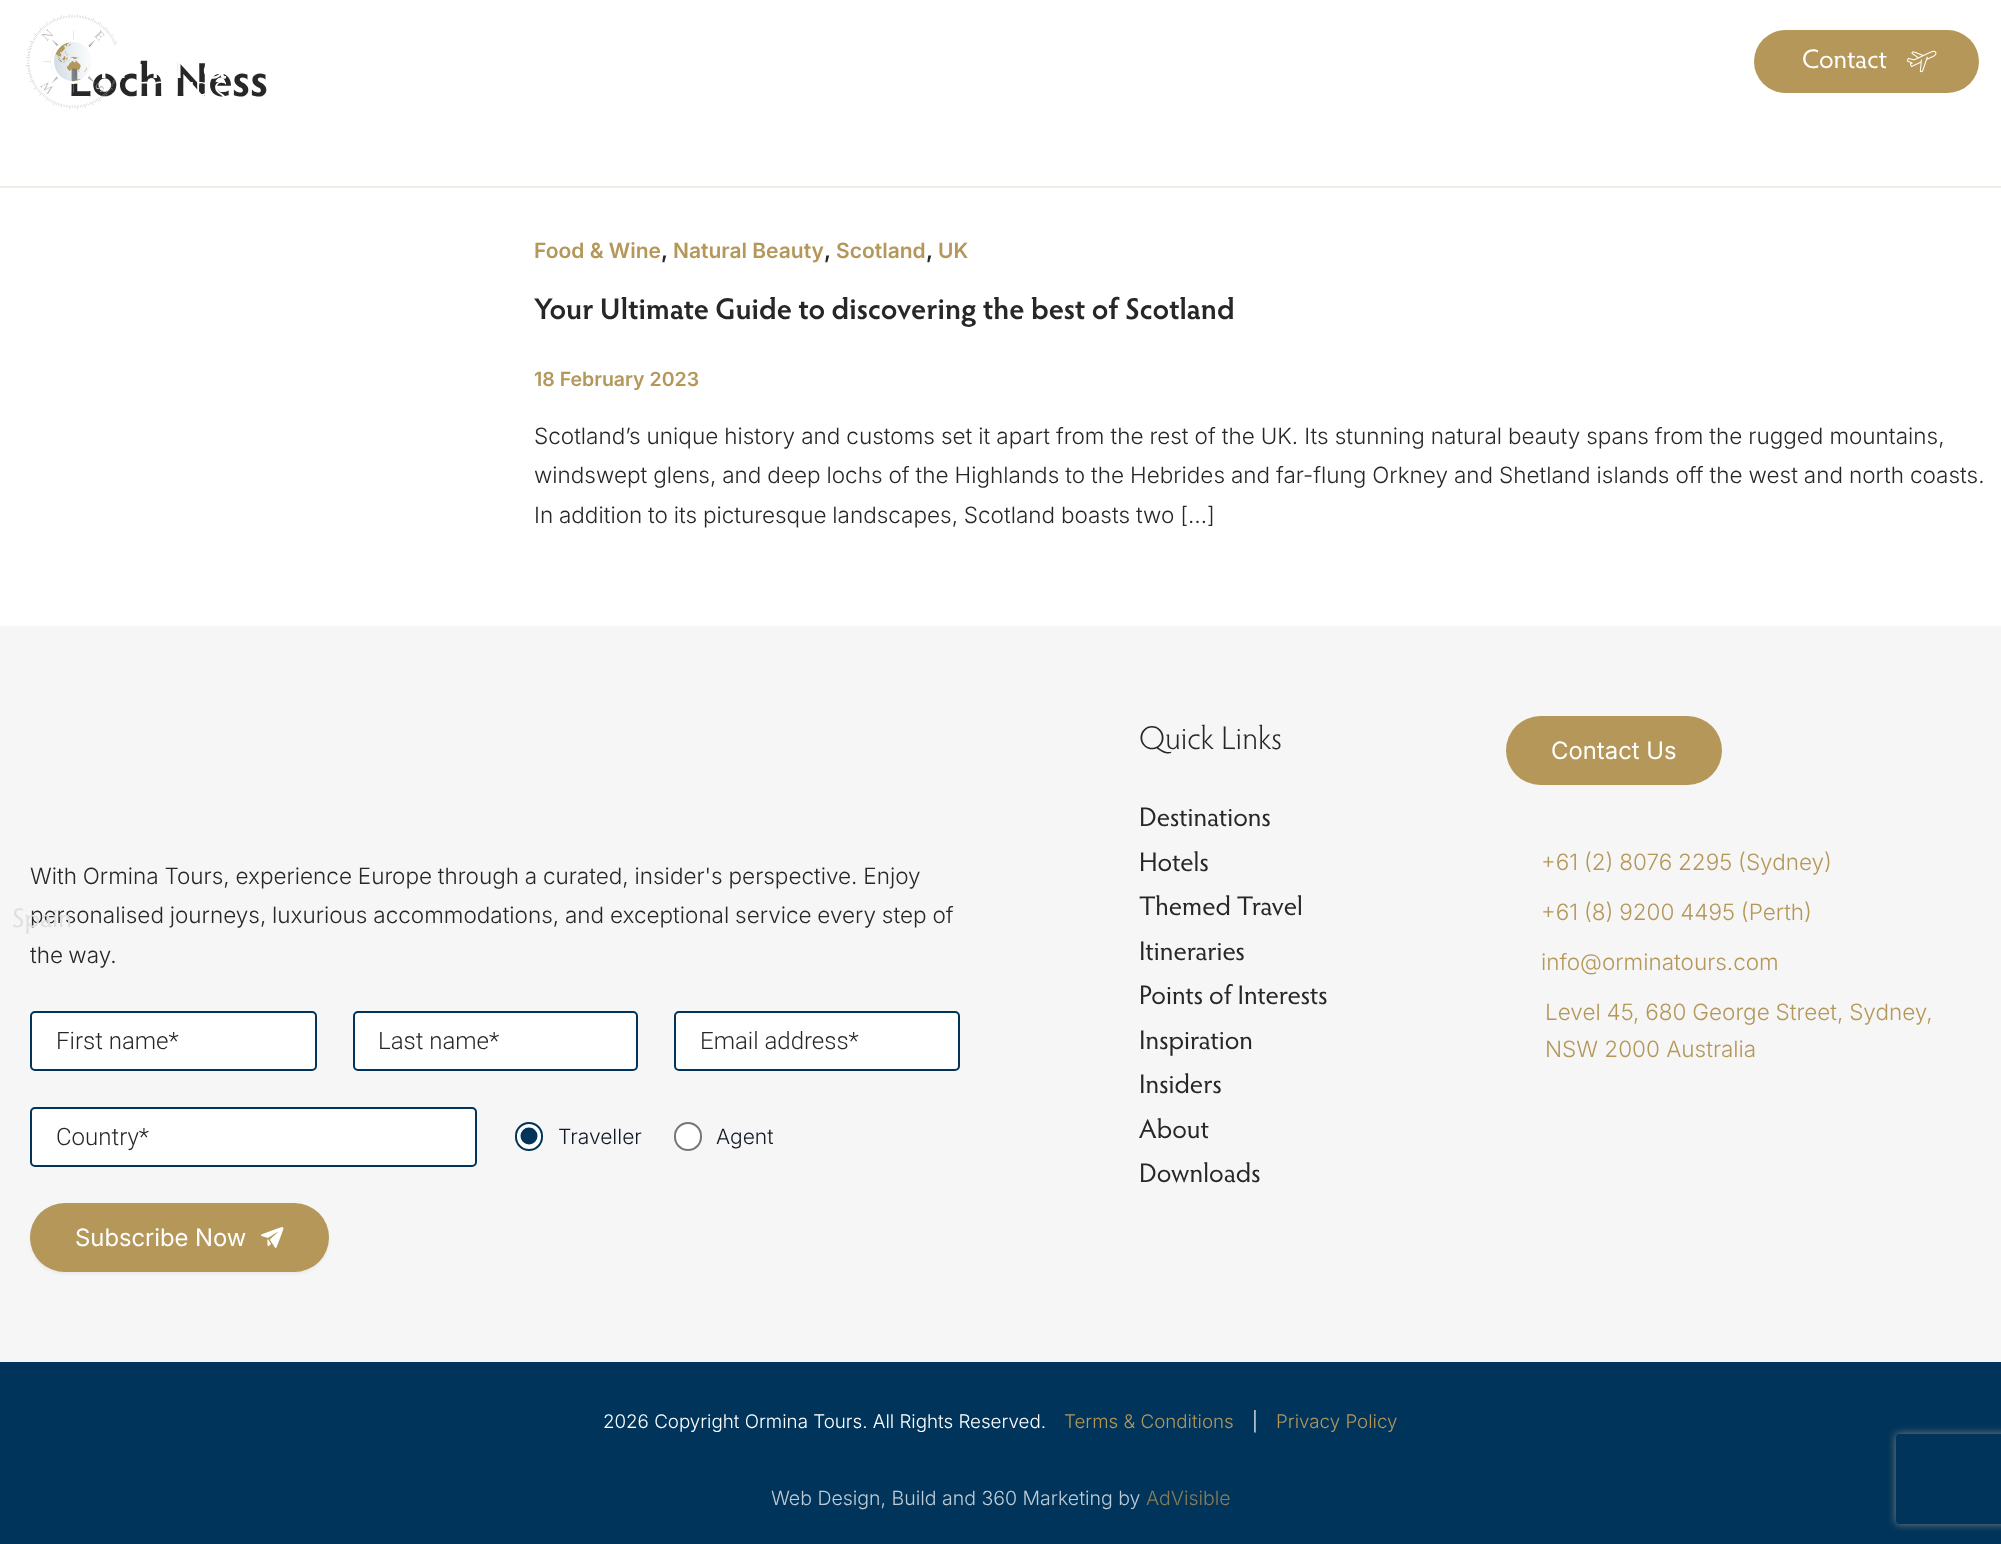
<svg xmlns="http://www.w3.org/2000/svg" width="2001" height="1544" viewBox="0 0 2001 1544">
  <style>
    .t1 { font: 600 48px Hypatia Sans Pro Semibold; fill: #272727; }
    .t2 { font: 27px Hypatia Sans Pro; fill: #fff; }
    .t3 { font: 300 22.5px Inter; fill: #272727; }
    .t4 { font: 27px Hypatia Sans Pro; fill: #dfdfdf; }
    .t5 { font: 600 21px Inter; fill: #b49759; }
    .t6 { font: 600 22.5px 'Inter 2'; fill: #272727; }
    .t7 { font: 600 30px Hypatia Sans Pro Semibold; fill: #272727; }
    .t8 { font: 600 19.5px Inter; fill: #b49759; }
    .t9 { font: 300 24px Roboto; fill: #272727; }
    .t10 { font: 300 21px Inter; fill: #111827; }
    .t11 { font: 24px Inter; fill: #fff; }
    .t12 { font: 300 33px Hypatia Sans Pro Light; fill: #272727; }
    .t13 { font: 27px Hypatia Sans Pro; fill: #272727; }
    .t14 { font: 300 22.5px Inter; fill: #b49759; }
    .t15 { font: 300 18.75px Inter; fill: #fff; }
    .t16 { font: 300 18.75px Inter; fill: #b49759; }
    .t17 { font: 300 19.5px Inter; fill: #bfccd6; }
    .t18 { font: 300 19.5px Inter; fill: #877e59; }
  </style>
  <defs>
    <clipPath id="clip1"><path d="M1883 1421H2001V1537H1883ZM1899 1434H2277C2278.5 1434 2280 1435.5 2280 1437V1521C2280 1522.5 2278.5 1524 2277 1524H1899C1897.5 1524 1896 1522.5 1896 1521V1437C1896 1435.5 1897.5 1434 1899 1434Z" clip-rule="evenodd"/></clipPath>
  </defs>
  <rect width="100%" height="100%" fill="#fff"/>
  <text x="68" y="96" class="t1">Loch Ness</text>
  <image x="25" y="14" width="202" height="96" href="images/1.png"/>
  <rect x="1754" y="30" width="225" height="63" rx="31.5" fill="#b49759"/>
  <image x="1907" y="50" width="30" height="23" href="images/2.png"/>
  <text x="1802" y="68" class="t2">Contact</text>
  <rect x="0" y="626" width="2001" height="736" fill="#f6f6f6"/>
  <text x="30" y="923" word-spacing="-0.5" class="t3">personalised journeys, luxurious accommodations, and exceptional service every step of</text>
  <text x="12" y="927" class="t4">Spain</text>
  <rect x="0" y="186" width="2001" height="2" fill="#f2ede4"/>
  <text x="534" y="258" class="t5">Food &amp; Wine</text>
  <text x="661" y="258" class="t6">,</text>
  <text x="673" y="258" class="t5">Natural Beauty</text>
  <text x="824" y="258" class="t6">,</text>
  <text x="836" y="258" class="t5">Scotland</text>
  <text x="926" y="258" class="t6">,</text>
  <text x="938" y="258" class="t5">UK</text>
  <text x="534" y="319" class="t7">Your Ultimate Guide to discovering the best of Scotland</text>
  <text x="534" y="386" class="t8">18 February 2023</text>
  <text x="534" y="444" word-spacing="-0.3" class="t3">Scotland’s unique history and customs set it apart from the rest of the UK. Its stunning natural beauty spans from the rugged mountains,</text>
  <text x="534" y="483" word-spacing="-0.35" class="t3">windswept glens, and deep lochs of the Highlands to the Hebrides and far-flung Orkney and Shetland islands off the west and north coasts.</text>
  <text x="534" y="523" word-spacing="-0.5" class="t3">In addition to its picturesque landscapes, Scotland boasts two […]</text>
  <text x="30" y="884" word-spacing="-0.5" class="t3">With Ormina Tours, experience Europe through a curated, insider's perspective. Enjoy</text>
  <text x="30" y="963" word-spacing="-1" class="t3">the way.</text>
  <rect x="31" y="1012" width="285" height="58" rx="4" fill="#fff" stroke="#00345a" stroke-width="2"/>
  <text x="56" y="1049" class="t9">First name*</text>
  <rect x="354" y="1012" width="283" height="58" rx="4" fill="#fff" stroke="#00345a" stroke-width="2"/>
  <text x="378" y="1049" class="t9">Last name*</text>
  <rect x="675" y="1012" width="284" height="58" rx="4" fill="#fff" stroke="#00345a" stroke-width="2"/>
  <text x="700" y="1049" class="t9">Email address*</text>
  <rect x="31" y="1108" width="445" height="58" rx="4" fill="#fff" stroke="#00345a" stroke-width="2"/>
  <text x="56" y="1145" class="t9">Country*</text>
  <rect x="516" y="1123" width="26" height="27" rx="13" fill="#fff" stroke="#00345a" stroke-width="2"/>
  <circle cx="529" cy="1136" r="8.5" fill="#00345a"/>
  <text x="558" y="1144" class="t10">Traveller</text>
  <rect x="675" y="1123" width="26" height="27" rx="13" fill="#fff" stroke="#767676" stroke-width="2"/>
  <text x="716" y="1144" class="t10">Agent</text>
  <rect x="30" y="1205" width="299" height="69" rx="34.5" fill="#0000000d" filter="blur(1.5px)"/>
  <rect x="30" y="1203" width="299" height="69" rx="34.5" fill="#b49759"/>
  <image x="261" y="1227" width="23" height="21" href="images/3.png"/>
  <text x="75" y="1246" class="t11">Subscribe Now</text>
  <text x="1139" y="749" class="t12">Quick Links</text>
  <text x="1139" y="826" class="t13">Destinations</text>
  <text x="1139" y="871" class="t13">Hotels</text>
  <text x="1139" y="915" class="t13">Themed Travel</text>
  <text x="1139" y="960" class="t13">Itineraries</text>
  <text x="1139" y="1004" class="t13">Points of Interests</text>
  <text x="1139" y="1049" class="t13">Inspiration</text>
  <text x="1139" y="1093" class="t13">Insiders</text>
  <text x="1139" y="1138" class="t13">About</text>
  <text x="1139" y="1182" class="t13">Downloads</text>
  <rect x="1506" y="716" width="216" height="69" rx="34.5" fill="#b49759"/>
  <text x="1551" y="759" class="t11">Contact Us</text>
  <text x="1541" y="870" word-spacing="-0.5" class="t14">+61 (2) 8076 2295 (Sydney)</text>
  <text x="1541" y="920" word-spacing="-0.5" class="t14">+61 (8) 9200 4495 (Perth)</text>
  <text x="1541" y="970" class="t14">info@orminatours.com</text>
  <text x="1545" y="1020" word-spacing="-0.5" class="t14">Level 45, 680 George Street, Sydney,</text>
  <text x="1545" y="1057" class="t14">NSW 2000 Australia</text>
  <rect x="0" y="1362" width="2001" height="182" fill="#00345a"/>
  <text x="603" y="1428" class="t15">2026 Copyright Ormina Tours. All Rights Reserved.</text>
  <text x="1064" y="1428" class="t16">Terms &amp; Conditions</text>
  <text x="1252" y="1428" class="t15">|</text>
  <text x="1276" y="1428" class="t16">Privacy Policy</text>
  <text x="771" y="1505" class="t17">Web Design, Build and 360 Marketing by</text>
  <text x="1146" y="1505" class="t18">AdVisible</text>
  <g clip-path="url(#clip1)">
    <rect x="1896" y="1434" width="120" height="90" rx="3" fill="#808080" filter="blur(4px)"/>
  </g>
</svg>
